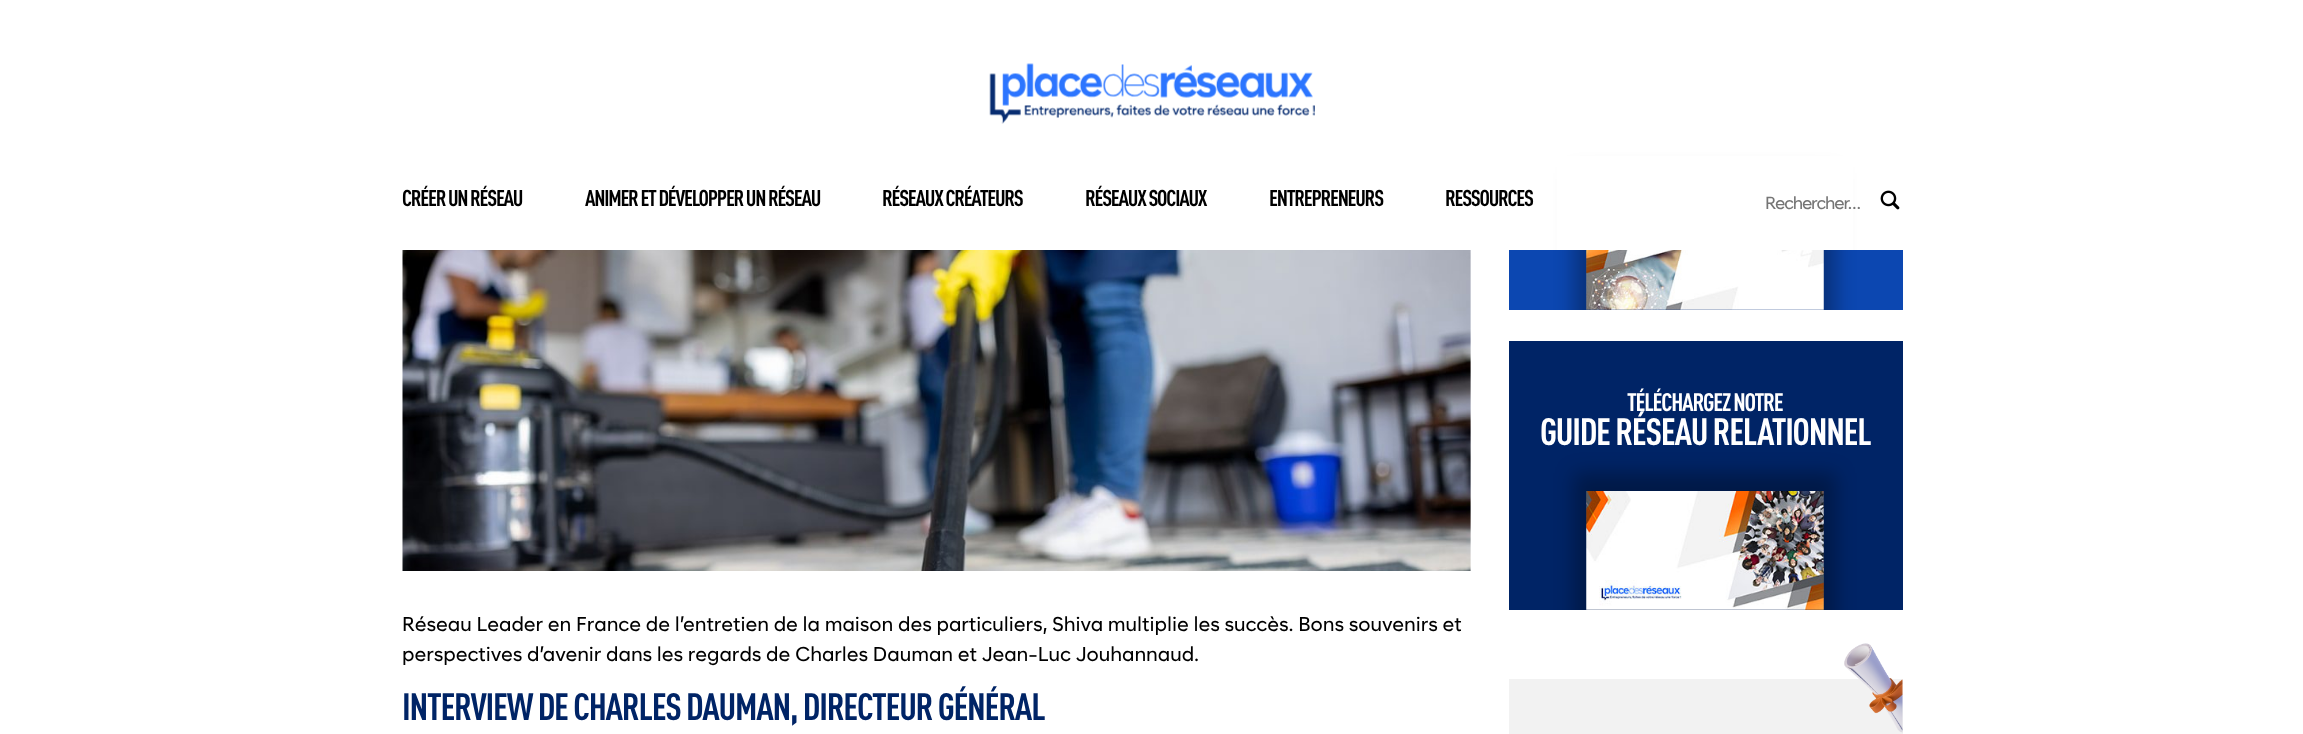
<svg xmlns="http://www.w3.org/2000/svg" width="2303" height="734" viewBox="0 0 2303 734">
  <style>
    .t1 { font: bold 22.5px DIN; letter-spacing: -1.25px; fill: #000; }
    .t2 { font: 500 17.5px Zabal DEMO; letter-spacing: -1.1px; fill: #757575; }
    .t3 { font: bold 25px DIN; letter-spacing: -1.25px; fill: #fff; }
    .t4 { font: bold 37.5px DIN; letter-spacing: -1.25px; fill: #fff; }
    .t5 { font: 500 20px Zabal DEMO; fill: #000; }
    .t6 { font: bold 37.5px DIN; letter-spacing: -1.25px; fill: #002466; }
  </style>
  <defs>
    <clipPath id="clip1"><rect x="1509" y="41" width="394" height="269"/></clipPath>
    <clipPath id="clip2"><rect x="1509" y="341" width="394" height="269"/></clipPath>
  </defs>
  <rect width="100%" height="100%" fill="#fff"/>
  <rect x="1509" y="250" width="394" height="60" fill="#0c47b1"/>
  <g clip-path="url(#clip1)">
    <rect x="1574" y="173" width="262" height="168" fill="#0000004d" filter="blur(9.5px)"/>
  </g>
  <rect x="1557" y="156" width="296" height="94" fill="#fff"/>
  <image x="989" y="63" width="326" height="61" href="images/1.png"/>
  <text x="402" y="206" class="t1">CRÉER UN RÉSEAU</text>
  <text x="585" y="206" class="t1">ANIMER ET DÉVELOPPER UN RÉSEAU</text>
  <text x="882" y="206" class="t1">RÉSEAUX CRÉATEURS</text>
  <text x="1085" y="206" class="t1">RÉSEAUX SOCIAUX</text>
  <text x="1269" y="206" class="t1">ENTREPRENEURS</text>
  <text x="1445" y="206" class="t1">RESSOURCES</text>
  <text x="1765" y="209" class="t2">Rechercher…</text>
  <image x="1880" y="190" width="20" height="20" href="images/2.png"/>
  <image x="1586" y="250" width="238" height="60" href="images/3.png"/>
  <rect x="1509" y="341" width="394" height="269" fill="#002466"/>
  <text x="1627" y="411" class="t3">TÉLÉCHARGEZ NOTRE</text>
  <text x="1540" y="445" class="t4">GUIDE RÉSEAU RELATIONNEL</text>
  <g clip-path="url(#clip2)">
    <rect x="1574" y="473" width="262" height="168" fill="#0000004d" filter="blur(9.5px)"/>
  </g>
  <image x="1586" y="491" width="238" height="119" href="images/4.png"/>
  <rect x="1509" y="679" width="394" height="55" fill="#f2f2f2"/>
  <image x="1844" y="643" width="59" height="90" href="images/5.png"/>
  <image x="402" y="250" width="1069" height="321" href="images/6.png"/>
  <text x="402" y="631" class="t5">Réseau Leader en France de l’entretien de la maison des particuliers, Shiva multiplie les succès. Bons souvenirs et</text>
  <text x="402" y="661" class="t5">perspectives d’avenir dans les regards de Charles Dauman et Jean-Luc Jouhannaud.</text>
  <text x="402" y="720" class="t6">INTERVIEW DE CHARLES DAUMAN, DIRECTEUR GÉNÉRAL</text>
</svg>
